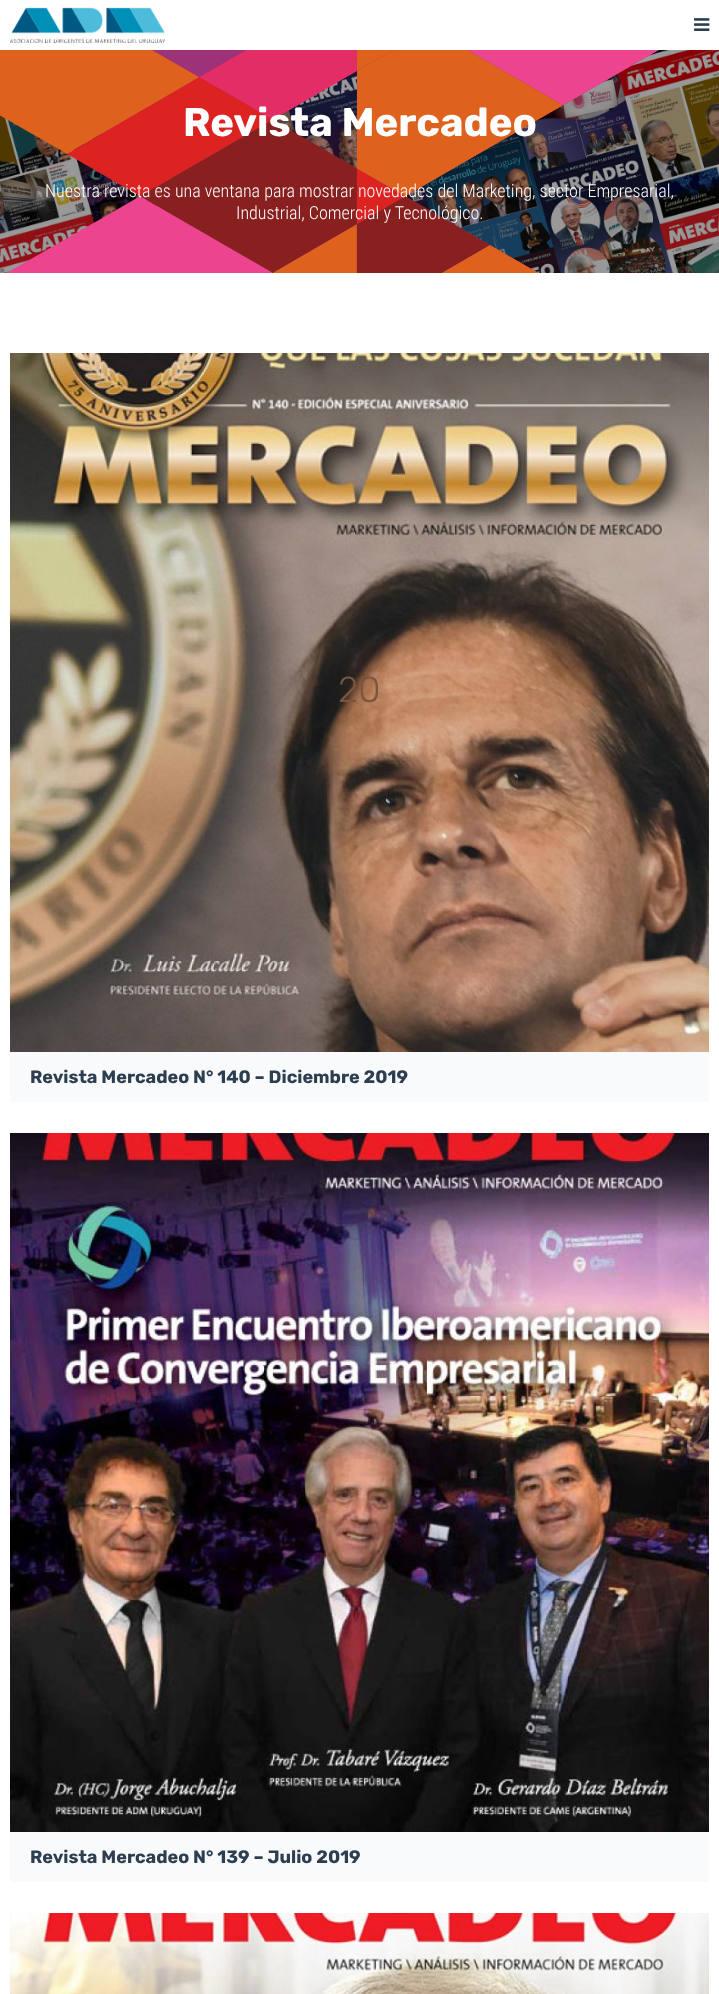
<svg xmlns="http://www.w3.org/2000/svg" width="719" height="1994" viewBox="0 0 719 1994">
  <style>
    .t1 { font: bold 40px Rubik; fill: #fff; }
    .t2 { font: 300 18px Roboto Condensed; fill: #fff; }
    .t3 { font: 300 36px Rubik; fill: #7b563f; }
    .t4 { font: bold 18px Rubik; fill: #2c3e50; }
  </style>
  <rect width="100%" height="100%" fill="#fff"/>
  <image x="10" y="7" width="155" height="36" href="images/1.png"/>
  <image x="694" y="18" width="16" height="13" href="images/2.png"/>
  <image x="0" y="50" width="719" height="223" href="images/3.png"/>
  <image x="0" y="50" width="659" height="223" href="images/4.png"/>
  <text x="183" y="136" class="t1">Revista Mercadeo</text>
  <text x="45" y="197" class="t2">Nuestra revista es una ventana para mostrar novedades del Marketing, sector Empresarial,</text>
  <text x="236" y="219" class="t2">Industrial, Comercial y Tecnológico.</text>
  <image x="10" y="353" width="699" height="699" href="images/5.png"/>
  <text x="338" y="702" class="t3">20</text>
  <rect x="10" y="1052" width="699" height="50" fill="#f9fafb"/>
  <text x="30" y="1083" class="t4">Revista Mercadeo N° 140 – Diciembre 2019</text>
  <image x="10" y="1133" width="699" height="699" href="images/6.png"/>
  <rect x="10" y="1832" width="699" height="50" fill="#f9fafb"/>
  <text x="30" y="1863" class="t4">Revista Mercadeo N° 139 – Julio 2019</text>
  <image x="10" y="1913" width="699" height="81" href="images/7.png"/>
</svg>
